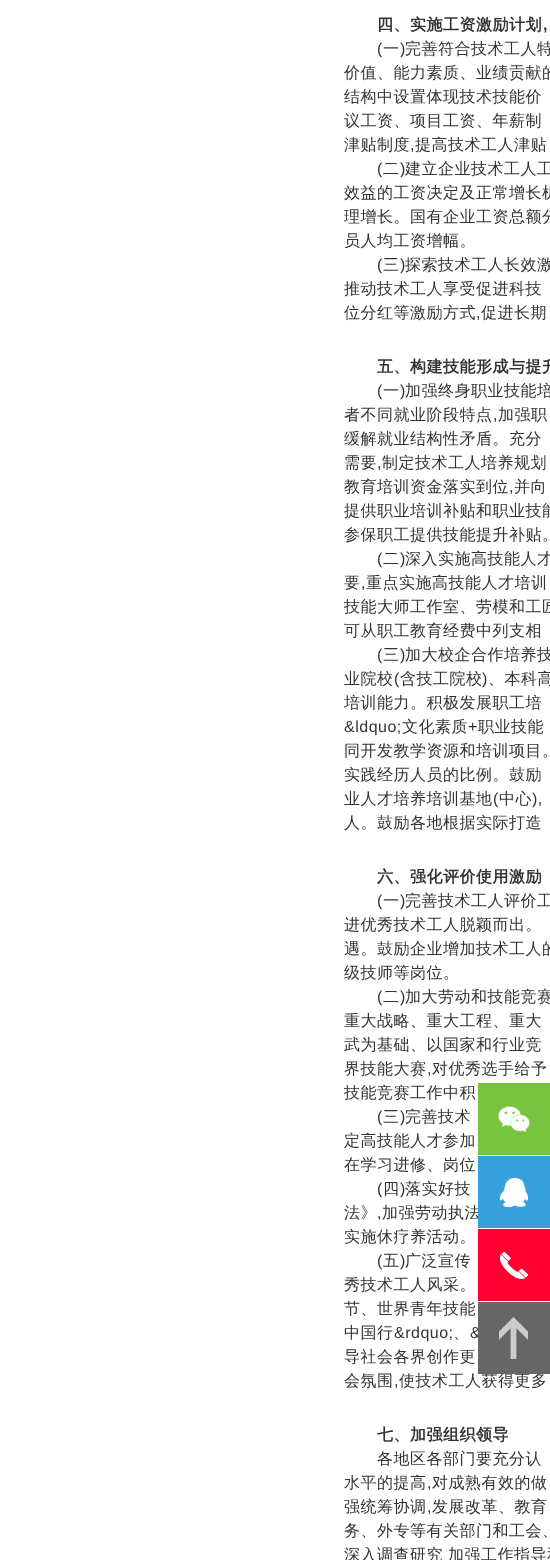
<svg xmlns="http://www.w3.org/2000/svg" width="550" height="1560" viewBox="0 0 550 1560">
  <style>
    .t1 { font: bold 16px WenQuanYi Zen Hei; letter-spacing: 0.5px; fill: #333; }
    .t2 { font: bold 16px Liberation Sans; letter-spacing: 0.5px; fill: #333; }
    .t3 { font: 16px Liberation Sans; letter-spacing: 0.5px; fill: #333; }
    .t4 { font: 500 16px WenQuanYi Zen Hei; letter-spacing: 0.5px; fill: #333; }
  </style>
  <rect width="100%" height="100%" fill="#fff"/>
  <text x="377" y="30" class="t1">四、实施工资激励计划</text>
  <text x="543" y="30" class="t2">,</text>
  <text x="377" y="54" class="t3">(</text>
  <text x="383" y="54" class="t4">一</text>
  <text x="400" y="54" class="t3">)</text>
  <text x="405" y="54" class="t4">完善符合技术工人特</text>
  <text x="344" y="78" class="t4">价值、能力素质、业绩贡献的</text>
  <text x="344" y="102" class="t4">结构中设置体现技术技能价</text>
  <text x="344" y="126" class="t4">议工资、项目工资、年薪制</text>
  <text x="344" y="150" class="t4">津贴制度</text>
  <text x="410" y="150" class="t3">,</text>
  <text x="415" y="150" class="t4">提高技术工人津贴</text>
  <text x="377" y="174" class="t3">(</text>
  <text x="383" y="174" class="t4">二</text>
  <text x="400" y="174" class="t3">)</text>
  <text x="405" y="174" class="t4">建立企业技术工人工</text>
  <text x="344" y="198" class="t4">效益的工资决定及正常增长机</text>
  <text x="344" y="222" class="t4">理增长。国有企业工资总额分</text>
  <text x="344" y="246" class="t4">员人均工资增幅。</text>
  <text x="377" y="270" class="t3">(</text>
  <text x="383" y="270" class="t4">三</text>
  <text x="400" y="270" class="t3">)</text>
  <text x="405" y="270" class="t4">探索技术工人长效激</text>
  <text x="344" y="294" class="t4">推动技术工人享受促进科技</text>
  <text x="344" y="318" class="t4">位分红等激励方式</text>
  <text x="476" y="318" class="t3">,</text>
  <text x="481" y="318" class="t4">促进长期</text>
  <text x="377" y="372" class="t1">五、构建技能形成与提升</text>
  <text x="377" y="396" class="t3">(</text>
  <text x="383" y="396" class="t4">一</text>
  <text x="400" y="396" class="t3">)</text>
  <text x="405" y="396" class="t4">加强终身职业技能培</text>
  <text x="344" y="420" class="t4">者不同就业阶段特点</text>
  <text x="493" y="420" class="t3">,</text>
  <text x="498" y="420" class="t4">加强职</text>
  <text x="344" y="444" class="t4">缓解就业结构性矛盾。充分</text>
  <text x="344" y="468" class="t4">需要</text>
  <text x="377" y="468" class="t3">,</text>
  <text x="382" y="468" class="t4">制定技术工人培养规划</text>
  <text x="344" y="492" class="t4">教育培训资金落实到位</text>
  <text x="509" y="492" class="t3">,</text>
  <text x="514" y="492" class="t4">并向</text>
  <text x="344" y="516" class="t4">提供职业培训补贴和职业技能</text>
  <text x="344" y="540" class="t4">参保职工提供技能提升补贴。</text>
  <text x="377" y="564" class="t3">(</text>
  <text x="383" y="564" class="t4">二</text>
  <text x="400" y="564" class="t3">)</text>
  <text x="405" y="564" class="t4">深入实施高技能人才</text>
  <text x="344" y="588" class="t4">要</text>
  <text x="361" y="588" class="t3">,</text>
  <text x="366" y="588" class="t4">重点实施高技能人才培训</text>
  <text x="344" y="612" class="t4">技能大师工作室、劳模和工匠</text>
  <text x="344" y="636" class="t4">可从职工教育经费中列支相</text>
  <text x="377" y="660" class="t3">(</text>
  <text x="383" y="660" class="t4">三</text>
  <text x="400" y="660" class="t3">)</text>
  <text x="405" y="660" class="t4">加大校企合作培养技</text>
  <text x="344" y="684" class="t4">业院校</text>
  <text x="394" y="684" class="t3">(</text>
  <text x="400" y="684" class="t4">含技工院校</text>
  <text x="482" y="684" class="t3">)</text>
  <text x="488" y="684" class="t4">、本科高</text>
  <text x="344" y="708" class="t4">培训能力。积极发展职工培</text>
  <text x="344" y="732" class="t3">&amp;ldquo;</text>
  <text x="402" y="732" class="t4">文化素质</text>
  <text x="468" y="732" class="t3">+</text>
  <text x="478" y="732" class="t4">职业技能</text>
  <text x="344" y="756" class="t4">同开发教学资源和培训项目。</text>
  <text x="344" y="780" class="t4">实践经历人员的比例。鼓励</text>
  <text x="344" y="804" class="t4">业人才培养培训基地</text>
  <text x="493" y="804" class="t3">(</text>
  <text x="499" y="804" class="t4">中心</text>
  <text x="532" y="804" class="t3">),</text>
  <text x="344" y="828" class="t4">人。鼓励各地根据实际打造</text>
  <text x="377" y="882" class="t1">六、强化评价使用激励</text>
  <text x="377" y="906" class="t3">(</text>
  <text x="383" y="906" class="t4">一</text>
  <text x="400" y="906" class="t3">)</text>
  <text x="405" y="906" class="t4">完善技术工人评价工</text>
  <text x="344" y="930" class="t4">进优秀技术工人脱颖而出。</text>
  <text x="344" y="954" class="t4">遇。鼓励企业增加技术工人的</text>
  <text x="344" y="978" class="t4">级技师等岗位。</text>
  <text x="377" y="1002" class="t3">(</text>
  <text x="383" y="1002" class="t4">二</text>
  <text x="400" y="1002" class="t3">)</text>
  <text x="405" y="1002" class="t4">加大劳动和技能竞赛</text>
  <text x="344" y="1026" class="t4">重大战略、重大工程、重大</text>
  <text x="344" y="1050" class="t4">武为基础、以国家和行业竞</text>
  <text x="344" y="1074" class="t4">界技能大赛</text>
  <text x="427" y="1074" class="t3">,</text>
  <text x="432" y="1074" class="t4">对优秀选手给予</text>
  <text x="344" y="1098" class="t4">技能竞赛工作中积</text>
  <text x="377" y="1122" class="t3">(</text>
  <text x="383" y="1122" class="t4">三</text>
  <text x="400" y="1122" class="t3">)</text>
  <text x="405" y="1122" class="t4">完善技术</text>
  <text x="344" y="1146" class="t4">定高技能人才参加</text>
  <text x="344" y="1170" class="t4">在学习进修、岗位</text>
  <text x="377" y="1194" class="t3">(</text>
  <text x="383" y="1194" class="t4">四</text>
  <text x="400" y="1194" class="t3">)</text>
  <text x="405" y="1194" class="t4">落实好技</text>
  <text x="344" y="1218" class="t4">法》</text>
  <text x="377" y="1218" class="t3">,</text>
  <text x="382" y="1218" class="t4">加强劳动执法</text>
  <text x="344" y="1242" class="t4">实施休疗养活动。</text>
  <text x="377" y="1266" class="t3">(</text>
  <text x="383" y="1266" class="t4">五</text>
  <text x="400" y="1266" class="t3">)</text>
  <text x="405" y="1266" class="t4">广泛宣传</text>
  <text x="344" y="1290" class="t4">秀技术工人风采。</text>
  <text x="344" y="1314" class="t4">节、世界青年技能</text>
  <text x="344" y="1338" class="t4">中国行</text>
  <text x="394" y="1338" class="t3">&amp;rdquo;</text>
  <text x="453" y="1338" class="t4">、</text>
  <text x="470" y="1338" class="t3">&amp;</text>
  <text x="344" y="1362" class="t4">导社会各界创作更</text>
  <text x="344" y="1386" class="t4">会氛围</text>
  <text x="394" y="1386" class="t3">,</text>
  <text x="399" y="1386" class="t4">使技术工人获得更多</text>
  <text x="377" y="1440" class="t1">七、加强组织领导</text>
  <text x="377" y="1464" class="t4">各地区各部门要充分认</text>
  <text x="344" y="1488" class="t4">水平的提高</text>
  <text x="427" y="1488" class="t3">,</text>
  <text x="432" y="1488" class="t4">对成熟有效的做</text>
  <text x="344" y="1512" class="t4">强统筹协调</text>
  <text x="427" y="1512" class="t3">,</text>
  <text x="432" y="1512" class="t4">发展改革、教育</text>
  <text x="344" y="1536" class="t4">务、外专等有关部门和工会、</text>
  <text x="344" y="1560" class="t4">深入调查研究</text>
  <text x="448" y="1560" class="t4">加强工作指导和</text>
  <rect x="478" y="1083" width="72" height="72" fill="#78c340"/>
  <image x="498" y="1106" width="32" height="26" href="images/1.png"/>
  <rect x="478" y="1156" width="72" height="72" fill="#36a1db"/>
  <image x="500" y="1178" width="28" height="29" href="images/2.png"/>
  <rect x="478" y="1229" width="72" height="72" fill="#f03"/>
  <image x="500" y="1252" width="28" height="27" href="images/3.png"/>
  <rect x="478" y="1302" width="72" height="72" fill="#666"/>
  <image x="499" y="1317" width="29" height="42" href="images/4.png"/>
</svg>
